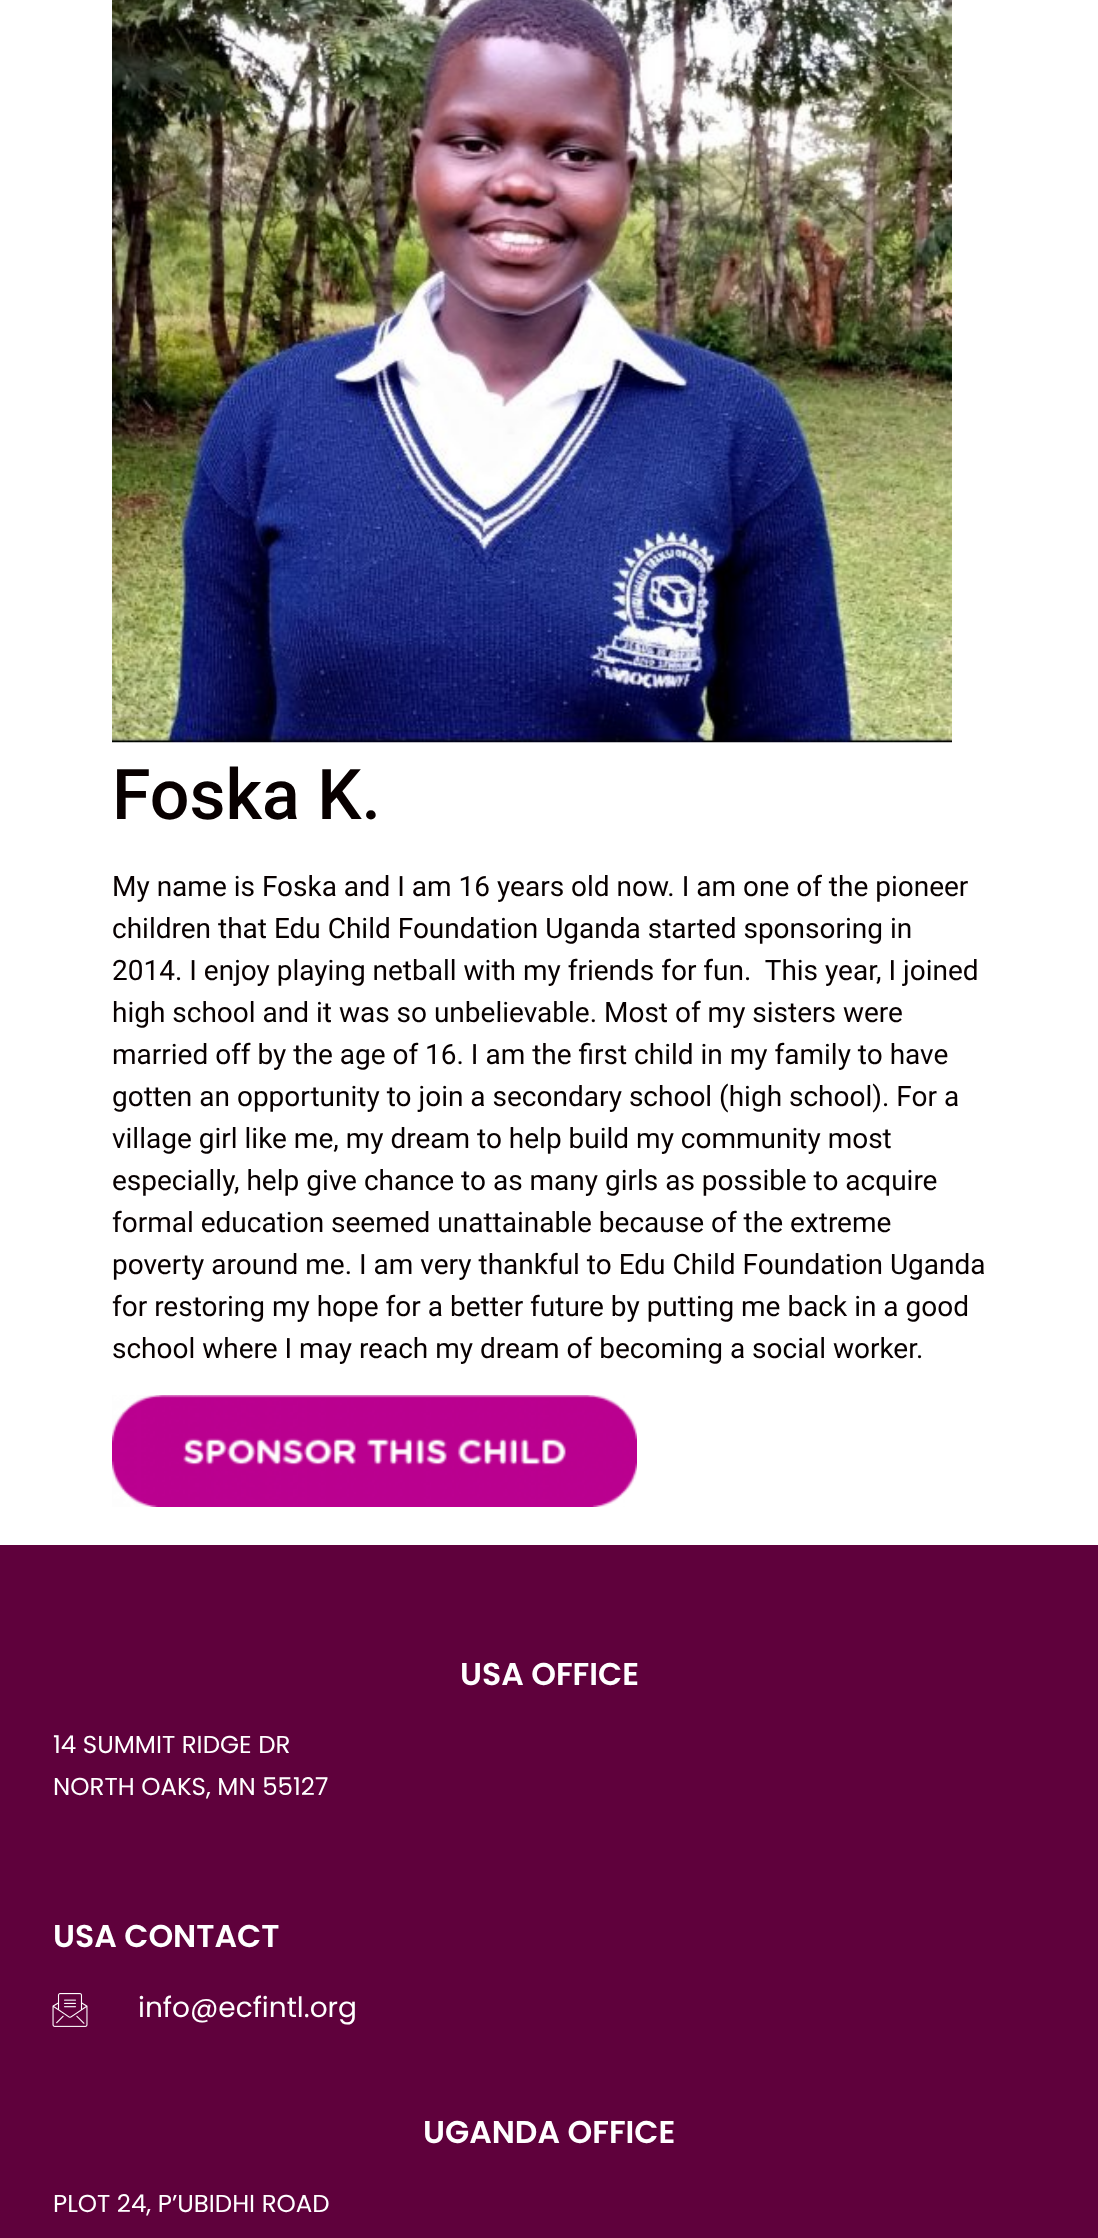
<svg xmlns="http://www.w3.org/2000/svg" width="1098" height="2238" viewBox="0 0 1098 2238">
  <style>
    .t1 { font: 500 70px Roboto; fill: #080000; }
    .t2 { font: 28px Roboto; fill: #080000; }
    .t3 { font: 600 31.5px Poppins; fill: #fff; }
    .t4 { font: 24.5px Poppins; fill: #fff; }
    .t5 { font: 28px Poppins; fill: #fff; }
  </style>
  <rect width="100%" height="100%" fill="#fff"/>
  <image x="112" y="0" width="840" height="743" href="images/1.png"/>
  <text x="112" y="819" class="t1">Foska K.</text>
  <text x="112" y="896" class="t2">My name is Foska and I am 16 years old now. I am one of the pioneer</text>
  <text x="112" y="938" class="t2">children that Edu Child Foundation Uganda started sponsoring in</text>
  <text x="112" y="980" class="t2" xml:space="preserve">2014. I enjoy playing netball with my friends for fun.  This year, I joined</text>
  <text x="112" y="1022" class="t2">high school and it was so unbelievable. Most of my sisters were</text>
  <text x="112" y="1064" class="t2">married off by the age of 16. I am the first child in my family to have</text>
  <text x="112" y="1106" class="t2">gotten an opportunity to join a secondary school (high school). For a</text>
  <text x="112" y="1148" class="t2">village girl like me, my dream to help build my community most</text>
  <text x="112" y="1190" class="t2">especially, help give chance to as many girls as possible to acquire</text>
  <text x="112" y="1232" class="t2">formal education seemed unattainable because of the extreme</text>
  <text x="112" y="1274" class="t2">poverty around me. I am very thankful to Edu Child Foundation Uganda</text>
  <text x="112" y="1316" class="t2">for restoring my hope for a better future by putting me back in a good</text>
  <text x="112" y="1358" class="t2">school where I may reach my dream of becoming a social worker.</text>
  <image x="112" y="1395" width="525" height="112" href="images/2.png"/>
  <rect x="0" y="1545" width="1098" height="693" fill="#5f013c"/>
  <text x="460" y="1685" class="t3">USA OFFICE</text>
  <text x="53" y="1753" class="t4">14 SUMMIT RIDGE DR</text>
  <text x="53" y="1795" class="t4">NORTH OAKS, MN 55127</text>
  <text x="53" y="1947" class="t3">USA CONTACT</text>
  <image x="52" y="1993" width="36" height="34" href="images/3.png"/>
  <text x="138" y="2017" class="t5">info@ecfintl.org</text>
  <text x="423" y="2143" class="t3">UGANDA OFFICE</text>
  <text x="53" y="2212" class="t4">PLOT 24, P’UBIDHI ROAD</text>
</svg>
